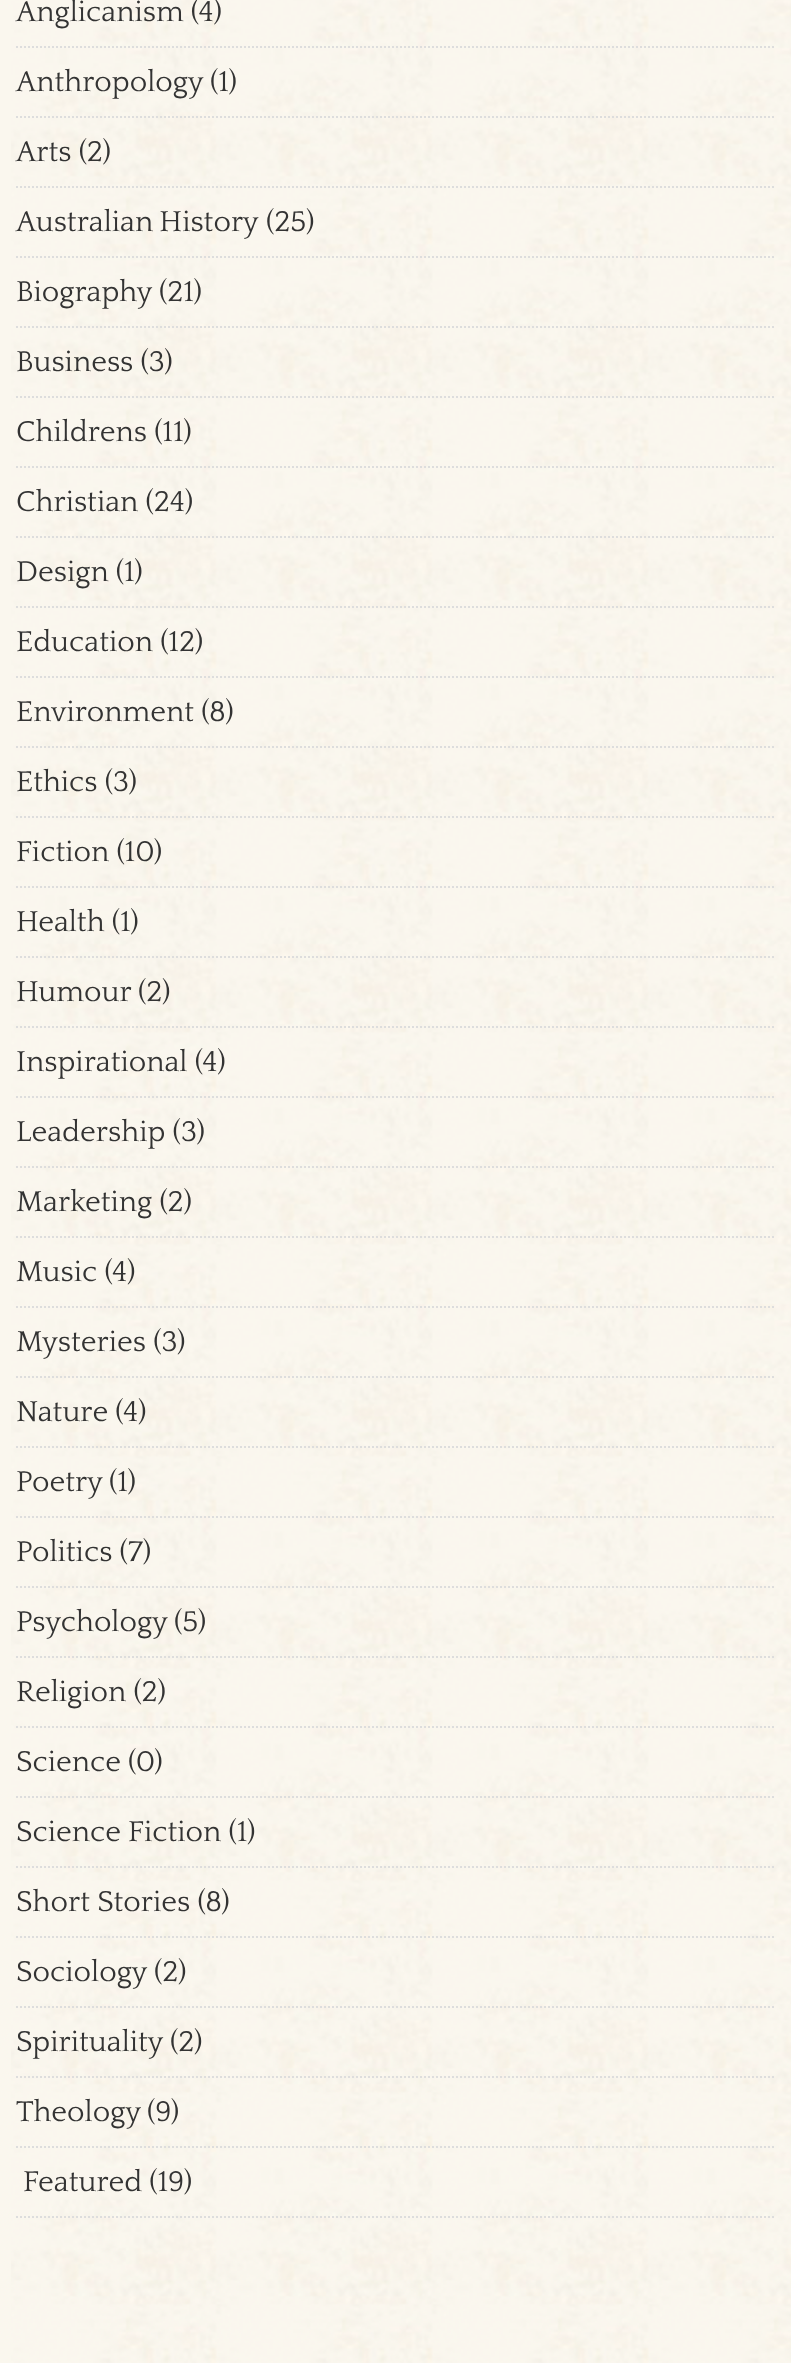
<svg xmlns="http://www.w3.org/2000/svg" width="791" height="2363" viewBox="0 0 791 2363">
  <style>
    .t1 { font: 30px Quattrocento; fill: #333; }
  </style>
  <rect width="100%" height="100%" fill="#faf7ee"/>
  <image x="11" y="0" width="780" height="2363" href="images/1.png"/>
  <path d="M16 47H776" fill="none" stroke="#ddd" stroke-width="2" stroke-dasharray="2 2"/>
  <text x="16" y="21" class="t1">Anglicanism (4)</text>
  <path d="M16 117H776" fill="none" stroke="#ddd" stroke-width="2" stroke-dasharray="2 2"/>
  <text x="16" y="91" class="t1">Anthropology</text>
  <text x="210" y="91" class="t1">(1)</text>
  <path d="M16 187H776" fill="none" stroke="#ddd" stroke-width="2" stroke-dasharray="2 2"/>
  <text x="16" y="161" class="t1">Arts (2)</text>
  <path d="M16 257H776" fill="none" stroke="#ddd" stroke-width="2" stroke-dasharray="2 2"/>
  <text x="16" y="231" word-spacing="-1" class="t1">Australian History</text>
  <text x="266" y="231" class="t1">(25)</text>
  <path d="M16 327H776" fill="none" stroke="#ddd" stroke-width="2" stroke-dasharray="2 2"/>
  <text x="16" y="301" class="t1">Biography</text>
  <text x="159" y="301" class="t1">(21)</text>
  <path d="M16 397H776" fill="none" stroke="#ddd" stroke-width="2" stroke-dasharray="2 2"/>
  <text x="16" y="371" class="t1">Business (3)</text>
  <path d="M16 467H776" fill="none" stroke="#ddd" stroke-width="2" stroke-dasharray="2 2"/>
  <text x="16" y="441" class="t1">Childrens (11)</text>
  <path d="M16 537H776" fill="none" stroke="#ddd" stroke-width="2" stroke-dasharray="2 2"/>
  <text x="16" y="511" class="t1">Christian (24)</text>
  <path d="M16 607H776" fill="none" stroke="#ddd" stroke-width="2" stroke-dasharray="2 2"/>
  <text x="16" y="581" class="t1">Design (1)</text>
  <path d="M16 677H776" fill="none" stroke="#ddd" stroke-width="2" stroke-dasharray="2 2"/>
  <text x="16" y="651" class="t1">Education (12)</text>
  <path d="M16 747H776" fill="none" stroke="#ddd" stroke-width="2" stroke-dasharray="2 2"/>
  <text x="16" y="721" class="t1">Environment (8)</text>
  <path d="M16 817H776" fill="none" stroke="#ddd" stroke-width="2" stroke-dasharray="2 2"/>
  <text x="16" y="791" class="t1">Ethics (3)</text>
  <path d="M16 887H776" fill="none" stroke="#ddd" stroke-width="2" stroke-dasharray="2 2"/>
  <text x="16" y="861" class="t1">Fiction (10)</text>
  <path d="M16 957H776" fill="none" stroke="#ddd" stroke-width="2" stroke-dasharray="2 2"/>
  <text x="16" y="931" class="t1">Health (1)</text>
  <path d="M16 1027H776" fill="none" stroke="#ddd" stroke-width="2" stroke-dasharray="2 2"/>
  <text x="16" y="1001" class="t1">Humour</text>
  <text x="138" y="1001" class="t1">(2)</text>
  <path d="M16 1097H776" fill="none" stroke="#ddd" stroke-width="2" stroke-dasharray="2 2"/>
  <text x="16" y="1071" class="t1">Inspirational (4)</text>
  <path d="M16 1167H776" fill="none" stroke="#ddd" stroke-width="2" stroke-dasharray="2 2"/>
  <text x="16" y="1141" class="t1">Leadership (3)</text>
  <path d="M16 1237H776" fill="none" stroke="#ddd" stroke-width="2" stroke-dasharray="2 2"/>
  <text x="16" y="1211" class="t1">Marketing (2)</text>
  <path d="M16 1307H776" fill="none" stroke="#ddd" stroke-width="2" stroke-dasharray="2 2"/>
  <text x="16" y="1281" class="t1">Music (4)</text>
  <path d="M16 1377H776" fill="none" stroke="#ddd" stroke-width="2" stroke-dasharray="2 2"/>
  <text x="16" y="1351" class="t1">Mysteries (3)</text>
  <path d="M16 1447H776" fill="none" stroke="#ddd" stroke-width="2" stroke-dasharray="2 2"/>
  <text x="16" y="1421" class="t1">Nature (4)</text>
  <path d="M16 1517H776" fill="none" stroke="#ddd" stroke-width="2" stroke-dasharray="2 2"/>
  <text x="16" y="1491" class="t1">Poetry</text>
  <text x="109" y="1491" class="t1">(1)</text>
  <path d="M16 1587H776" fill="none" stroke="#ddd" stroke-width="2" stroke-dasharray="2 2"/>
  <text x="16" y="1561" class="t1">Politics (7)</text>
  <path d="M16 1657H776" fill="none" stroke="#ddd" stroke-width="2" stroke-dasharray="2 2"/>
  <text x="16" y="1631" class="t1">Psychology</text>
  <text x="174" y="1631" class="t1">(5)</text>
  <path d="M16 1727H776" fill="none" stroke="#ddd" stroke-width="2" stroke-dasharray="2 2"/>
  <text x="16" y="1701" class="t1">Religion (2)</text>
  <path d="M16 1797H776" fill="none" stroke="#ddd" stroke-width="2" stroke-dasharray="2 2"/>
  <text x="16" y="1771" class="t1">Science (0)</text>
  <path d="M16 1867H776" fill="none" stroke="#ddd" stroke-width="2" stroke-dasharray="2 2"/>
  <text x="16" y="1841" class="t1">Science Fiction (1)</text>
  <path d="M16 1937H776" fill="none" stroke="#ddd" stroke-width="2" stroke-dasharray="2 2"/>
  <text x="16" y="1911" class="t1">Short Stories (8)</text>
  <path d="M16 2007H776" fill="none" stroke="#ddd" stroke-width="2" stroke-dasharray="2 2"/>
  <text x="16" y="1981" class="t1">Sociology</text>
  <text x="154" y="1981" class="t1">(2)</text>
  <path d="M16 2077H776" fill="none" stroke="#ddd" stroke-width="2" stroke-dasharray="2 2"/>
  <text x="16" y="2051" class="t1">Spirituality</text>
  <text x="170" y="2051" class="t1">(2)</text>
  <path d="M16 2147H776" fill="none" stroke="#ddd" stroke-width="2" stroke-dasharray="2 2"/>
  <text x="16" y="2121" class="t1">Theology</text>
  <text x="147" y="2121" class="t1">(9)</text>
  <path d="M16 2217H776" fill="none" stroke="#ddd" stroke-width="2" stroke-dasharray="2 2"/>
  <text x="23" y="2191" class="t1">Featured (19)</text>
</svg>
